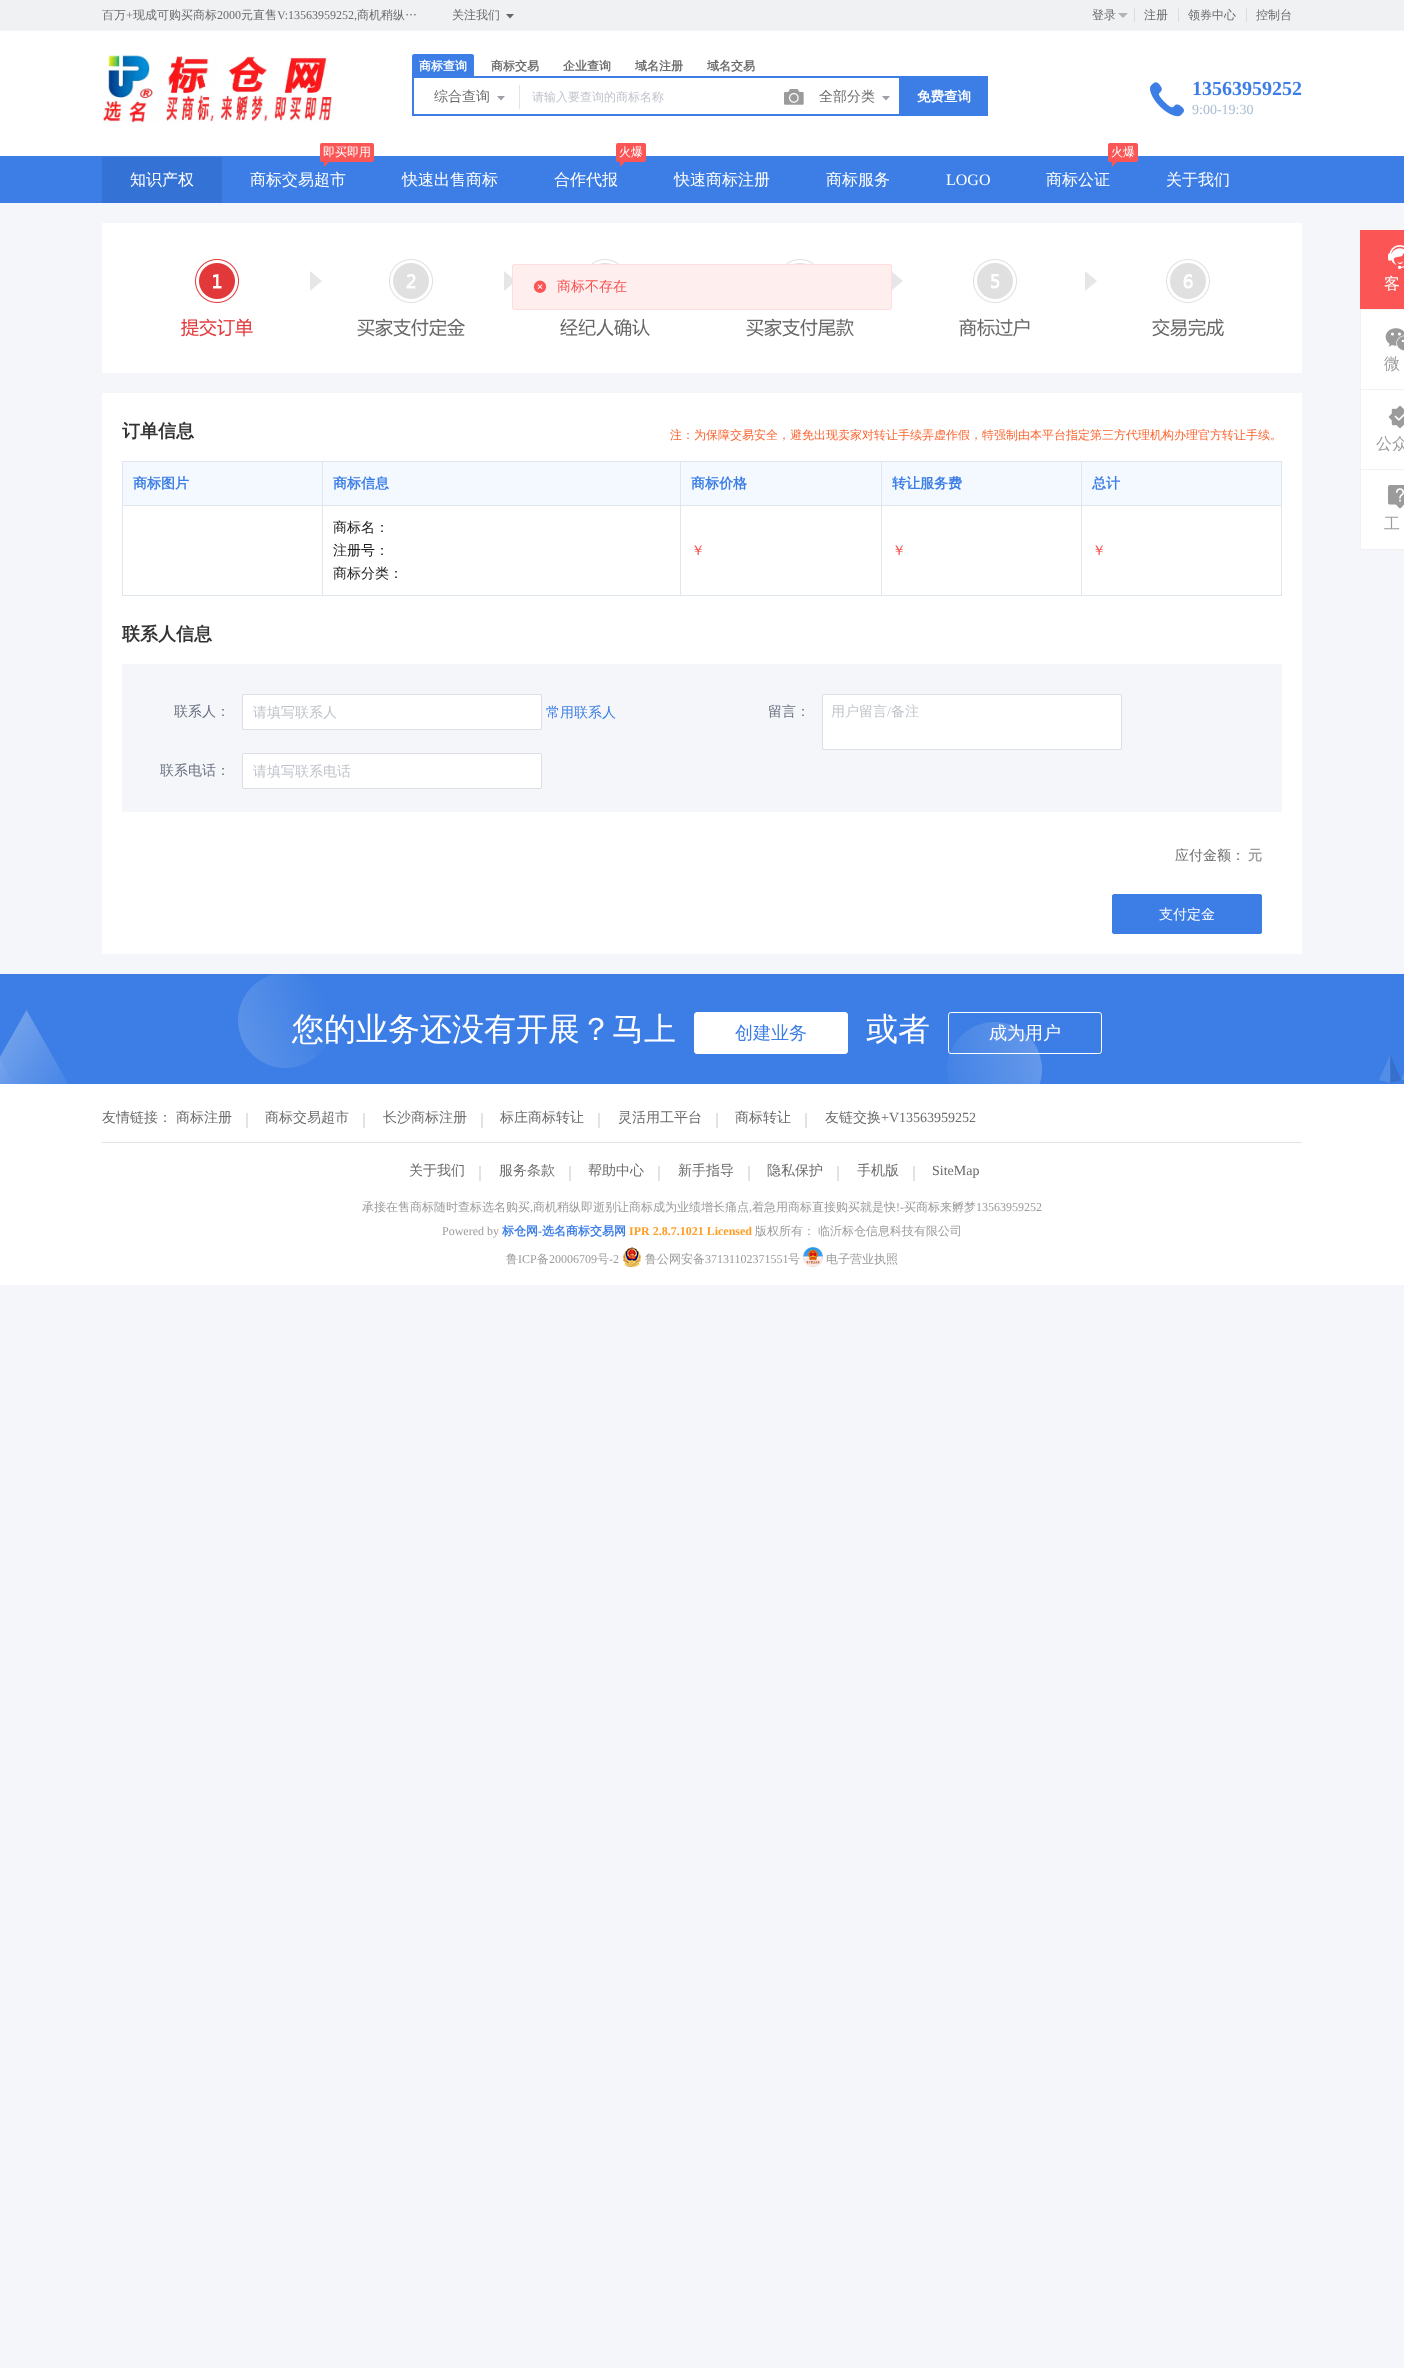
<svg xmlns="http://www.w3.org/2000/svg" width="1404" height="2368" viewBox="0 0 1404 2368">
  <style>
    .t1 { font: 500 12px WenQuanYi Zen Hei; fill: #6b6b6b; }
    .t2 { font: 12px Liberation Serif; fill: #6b6b6b; }
    .t3 { font: bold 12px WenQuanYi Zen Hei; fill: #fff; }
    .t4 { font: bold 12px WenQuanYi Zen Hei; fill: #6b6b6b; }
    .t5 { font: 500 14px WenQuanYi Zen Hei; fill: #6b6b6b; }
    .t6 { font: 500 12px WenQuanYi Zen Hei; fill: #c0c4cc; }
    .t7 { font: bold 13.5px WenQuanYi Zen Hei; fill: #fff; }
    .t8 { font: bold 20px Liberation Serif; fill: #3c7ee5; }
    .t9 { font: 14px Liberation Serif; fill: #a9bdd3; }
    .t10 { font: 500 16px WenQuanYi Zen Hei; fill: #fff; }
    .t11 { font: 500 12px WenQuanYi Zen Hei; fill: #fff; }
    .t12 { font: 16px Liberation Serif; fill: #fff; }
    .t13 { font: 500 16px WenQuanYi Zen Hei; fill: #9b9b9b; }
    .t14 { font: 500 32px WenQuanYi Zen Hei; fill: #fff; }
    .t15 { font: 500 18px WenQuanYi Zen Hei; fill: #3c7ee5; }
    .t16 { font: 500 18px WenQuanYi Zen Hei; fill: #fff; }
    .t17 { font: 14px Liberation Serif; fill: #6b6b6b; }
    .t18 { font: 500 12px WenQuanYi Zen Hei; fill: #9b9b9b; }
    .t19 { font: 12px Liberation Serif; fill: #9b9b9b; }
    .t20 { font: bold 12px WenQuanYi Zen Hei; fill: #3c7ee5; }
    .t21 { font: bold 12px Liberation Serif; fill: #3c7ee5; }
    .t22 { font: bold 12px Liberation Serif; fill: #ff9d25; }
    .t23 { font: 500 14px WenQuanYi Zen Hei; fill: #f85252; }
    .t24 { font: bold 18px WenQuanYi Zen Hei; fill: #333; }
    .t25 { font: 500 12px WenQuanYi Zen Hei; fill: #fc6530; }
    .t26 { font: bold 14px WenQuanYi Zen Hei; fill: #3c7ee5; }
    .t27 { font: 500 14px WenQuanYi Zen Hei; fill: #1b1b1b; }
    .t28 { font: 500 14px WenQuanYi Zen Hei; fill: #6a7181; }
    .t29 { font: 500 14px WenQuanYi Zen Hei; fill: #c0c4cc; }
    .t30 { font: 500 14px WenQuanYi Zen Hei; fill: #3c7ee5; }
    .t31 { font: 14px Liberation Serif; fill: #c0c4cc; }
    .t32 { font: bold 14px WenQuanYi Zen Hei; fill: #9b9b9b; }
    .t33 { font: 500 14px WenQuanYi Zen Hei; fill: #fff; }
  </style>
  <rect width="100%" height="100%" fill="#f5f6fa"/>
  <rect x="0" y="0" width="1404" height="30" fill="#f0f1f3"/>
  <text x="102" y="19" class="t1">百万</text>
  <text x="126" y="19" class="t2">+</text>
  <text x="133" y="19" class="t1">现成可购买商标</text>
  <text x="217" y="19" class="t2">2000</text>
  <text x="241" y="19" class="t1">元直售</text>
  <text x="277" y="19" class="t2">V:13563959252,</text>
  <text x="357" y="19" class="t1">商机稍纵…</text>
  <text x="452" y="19" class="t1">关注我们</text>
  <path d="M506 14H514L510 18.5Z" fill="#666"/>
  <text x="1092" y="19" class="t1">登录</text>
  <path d="M1118 13H1128L1123 18Z" fill="#b3b3b3"/>
  <rect x="1134" y="8" width="1" height="14" fill="#ddd"/>
  <text x="1144" y="19" class="t1">注册</text>
  <rect x="1178" y="8" width="1" height="14" fill="#ddd"/>
  <text x="1188" y="19" class="t1">领券中心</text>
  <rect x="1246" y="8" width="1" height="14" fill="#ddd"/>
  <text x="1256" y="19" class="t1">控制台</text>
  <rect x="0" y="31" width="1404" height="125" fill="#fff"/>
  <image x="102" y="54" width="230" height="70" href="images/1.png"/>
  <path d="M414 54H472C473 54 474 55 474 56V76H412V56C412 55 413 54 414 54Z" fill="#3c7ee5"/>
  <text x="419" y="70" class="t3">商标查询</text>
  <text x="491" y="70" class="t4">商标交易</text>
  <text x="563" y="70" class="t4">企业查询</text>
  <text x="635" y="70" class="t4">域名注册</text>
  <text x="707" y="70" class="t4">域名交易</text>
  <rect x="412" y="76" width="576" height="2" fill="#3c7ee5"/>
  <rect x="412" y="114" width="487" height="2" fill="#3c7ee5"/>
  <rect x="412" y="76" width="2" height="40" fill="#3c7ee5"/>
  <rect x="519" y="85" width="1" height="24" fill="#e0e3e8"/>
  <text x="434" y="101" class="t5">综合查询</text>
  <path d="M497 96H505L501 100.5Z" fill="#9da0a6"/>
  <text x="532" y="101" class="t6">请输入要查询的商标名称</text>
  <image x="784" y="89" width="20" height="16" href="images/2.png"/>
  <text x="819" y="101" class="t5">全部分类</text>
  <path d="M882 96H890L886 100.5Z" fill="#9da0a6"/>
  <rect x="899" y="78" width="89" height="38" fill="#3c7ee5"/>
  <text x="917" y="101" class="t7">免费查询</text>
  <image x="1150" y="82" width="34" height="35" href="images/3.png"/>
  <text x="1192" y="95" class="t8">13563959252</text>
  <text x="1192" y="114" class="t9">9:00-19:30</text>
  <rect x="0" y="156" width="1404" height="47" fill="#3c7ee5"/>
  <rect x="102" y="157" width="120" height="46" fill="#3473d5"/>
  <text x="130" y="185" class="t10">知识产权</text>
  <rect x="320" y="143" width="54" height="19" rx="2" fill="#fb5555"/>
  <text x="323" y="156" class="t11">即买即用</text>
  <path d="M324 159H332L324 167Z" fill="#fb5555"/>
  <text x="250" y="185" class="t10">商标交易超市</text>
  <text x="402" y="185" class="t10">快速出售商标</text>
  <rect x="616" y="143" width="30" height="19" rx="2" fill="#fb5555"/>
  <text x="619" y="156" class="t11">火爆</text>
  <path d="M620 159H628L620 167Z" fill="#fb5555"/>
  <text x="554" y="185" class="t10">合作代报</text>
  <text x="674" y="185" class="t10">快速商标注册</text>
  <text x="826" y="185" class="t10">商标服务</text>
  <text x="946" y="185" class="t12">LOGO</text>
  <rect x="1108" y="143" width="30" height="19" rx="2" fill="#fb5555"/>
  <text x="1111" y="156" class="t11">火爆</text>
  <path d="M1112 159H1120L1112 167Z" fill="#fb5555"/>
  <text x="1046" y="185" class="t10">商标公证</text>
  <text x="1166" y="185" class="t10">关于我们</text>
  <rect x="102" y="223" width="1200" height="150" fill="#fff"/>
  <image x="181" y="259" width="1043" height="78" href="images/4.png"/>
  <rect x="1360" y="230" width="44" height="79" fill="#fb5555"/>
  <rect x="1360" y="309" width="44" height="1" fill="#f1f1f1"/>
  <image x="1388" y="245" width="16" height="24" href="images/5.png"/>
  <text x="1384" y="289" class="t10">客</text>
  <rect x="1361" y="310" width="43" height="79" fill="#fff"/>
  <rect x="1360" y="389" width="44" height="1" fill="#f1f1f1"/>
  <rect x="1360" y="310" width="1" height="80" fill="#f1f1f1"/>
  <image x="1385" y="328" width="19" height="23" href="images/6.png"/>
  <text x="1384" y="369" class="t13">微</text>
  <rect x="1361" y="390" width="43" height="79" fill="#fff"/>
  <rect x="1360" y="469" width="44" height="1" fill="#f1f1f1"/>
  <rect x="1360" y="390" width="1" height="80" fill="#f1f1f1"/>
  <image x="1388" y="405" width="16" height="24" href="images/7.png"/>
  <text x="1376" y="449" class="t13">公众</text>
  <rect x="1361" y="470" width="43" height="79" fill="#fff"/>
  <rect x="1360" y="549" width="44" height="1" fill="#f1f1f1"/>
  <rect x="1360" y="470" width="1" height="80" fill="#f1f1f1"/>
  <image x="1388" y="485" width="16" height="24" href="images/8.png"/>
  <text x="1384" y="529" class="t13">工</text>
  <rect x="0" y="1084" width="1404" height="201" fill="#fff"/>
  <rect x="0" y="974" width="1404" height="110" fill="#3c7ee5"/>
  <image x="0" y="974" width="1404" height="110" href="images/9.png"/>
  <text x="292" y="1040" class="t14">您的业务还没有开展？马上</text>
  <rect x="694.5" y="1012.5" width="153" height="41" rx="2.5" fill="#fff" stroke="#fff"/>
  <text x="735" y="1039" class="t15">创建业务</text>
  <text x="866" y="1040" class="t14">或者</text>
  <rect x="948.5" y="1012.5" width="153" height="41" rx="2.5" fill="none" stroke="#fff"/>
  <text x="989" y="1039" class="t16">成为用户</text>
  <rect x="102" y="1142" width="1200" height="1" fill="#e0e3e8"/>
  <text x="102" y="1122" class="t5">友情链接：</text>
  <text x="176" y="1122" class="t5">商标注册</text>
  <rect x="246" y="1113" width="2" height="15" fill="#e0e3e8"/>
  <text x="265" y="1122" class="t5">商标交易超市</text>
  <rect x="363" y="1113" width="2" height="15" fill="#e0e3e8"/>
  <text x="383" y="1122" class="t5">长沙商标注册</text>
  <rect x="481" y="1113" width="2" height="15" fill="#e0e3e8"/>
  <text x="500" y="1122" class="t5">标庄商标转让</text>
  <rect x="598" y="1113" width="2" height="15" fill="#e0e3e8"/>
  <text x="618" y="1122" class="t5">灵活用工平台</text>
  <rect x="716" y="1113" width="2" height="15" fill="#e0e3e8"/>
  <text x="735" y="1122" class="t5">商标转让</text>
  <rect x="805" y="1113" width="2" height="15" fill="#e0e3e8"/>
  <text x="825" y="1122" class="t5">友链交换</text>
  <text x="881" y="1122" class="t17">+V13563959252</text>
  <text x="409" y="1175" class="t5">关于我们</text>
  <rect x="479" y="1166" width="2" height="15" fill="#e0e3e8"/>
  <text x="499" y="1175" class="t5">服务条款</text>
  <rect x="569" y="1166" width="2" height="15" fill="#e0e3e8"/>
  <text x="588" y="1175" class="t5">帮助中心</text>
  <rect x="658" y="1166" width="2" height="15" fill="#e0e3e8"/>
  <text x="678" y="1175" class="t5">新手指导</text>
  <rect x="748" y="1166" width="2" height="15" fill="#e0e3e8"/>
  <text x="767" y="1175" class="t5">隐私保护</text>
  <rect x="837" y="1166" width="2" height="15" fill="#e0e3e8"/>
  <text x="857" y="1175" class="t5">手机版</text>
  <rect x="913" y="1166" width="2" height="15" fill="#e0e3e8"/>
  <text x="932" y="1175" class="t17">SiteMap</text>
  <text x="362" y="1211" class="t18">承接在售商标随时查标选名购买</text>
  <text x="530" y="1211" class="t19">,</text>
  <text x="533" y="1211" class="t18">商机稍纵即逝别让商标成为业绩增长痛点</text>
  <text x="749" y="1211" class="t19">,</text>
  <text x="752" y="1211" class="t18">着急用商标直接购买就是快</text>
  <text x="896" y="1211" class="t19">!-</text>
  <text x="904" y="1211" class="t18">买商标来孵梦</text>
  <text x="976" y="1211" class="t19">13563959252</text>
  <text x="442" y="1235" class="t19">Powered by</text>
  <text x="502" y="1235" class="t20">标仓网</text>
  <text x="538" y="1235" class="t21">-</text>
  <text x="542" y="1235" class="t20">选名商标交易网</text>
  <text x="629" y="1235" class="t22">IPR 2.8.7.1021 Licensed</text>
  <text x="755" y="1235" class="t18">版权所有：</text>
  <text x="818" y="1235" class="t18">临沂标仓信息科技有限公司</text>
  <text x="506" y="1263" class="t18">鲁</text>
  <text x="518" y="1263" class="t19">ICP</text>
  <text x="537" y="1263" class="t18">备</text>
  <text x="549" y="1263" class="t19">20006709</text>
  <text x="597" y="1263" class="t18">号</text>
  <text x="609" y="1263" class="t19">-2</text>
  <image x="623" y="1247" width="18" height="20" href="images/10.png"/>
  <text x="645" y="1263" class="t18">鲁公网安备</text>
  <text x="705" y="1263" class="t19">37131102371551</text>
  <text x="788" y="1263" class="t18">号</text>
  <image x="803" y="1247" width="20" height="20" href="images/11.png"/>
  <text x="826" y="1263" class="t18">电子营业执照</text>
  <rect x="512.5" y="264.5" width="379" height="45" rx="1.5" fill="#fee" stroke="#fedddd"/>
  <image x="533" y="280" width="14" height="13" href="images/12.png"/>
  <text x="557" y="291" class="t23">商标不存在</text>
  <rect x="102" y="393" width="1200" height="561" fill="#fff"/>
  <text x="122" y="437" class="t24">订单信息</text>
  <text x="670" y="439" class="t25">注：为保障交易安全，避免出现卖家对转让手续弄虚作假，特强制由本平台指定第三方代理机构办理官方转让手续。</text>
  <rect x="122" y="461" width="1160" height="1" fill="#dfe6ec"/>
  <rect x="122" y="461" width="1" height="135" fill="#dfe6ec"/>
  <rect x="123" y="462" width="199" height="43" fill="#f4f9ff"/>
  <rect x="322" y="462" width="1" height="134" fill="#dfe6ec"/>
  <rect x="123" y="505" width="200" height="1" fill="#dfe6ec"/>
  <text x="133" y="488" class="t26">商标图片</text>
  <rect x="323" y="462" width="357" height="43" fill="#f4f9ff"/>
  <rect x="680" y="462" width="1" height="134" fill="#dfe6ec"/>
  <rect x="323" y="505" width="358" height="1" fill="#dfe6ec"/>
  <text x="333" y="488" class="t26">商标信息</text>
  <rect x="681" y="462" width="200" height="43" fill="#f4f9ff"/>
  <rect x="881" y="462" width="1" height="134" fill="#dfe6ec"/>
  <rect x="681" y="505" width="201" height="1" fill="#dfe6ec"/>
  <text x="691" y="488" class="t26">商标价格</text>
  <rect x="882" y="462" width="199" height="43" fill="#f4f9ff"/>
  <rect x="1081" y="462" width="1" height="134" fill="#dfe6ec"/>
  <rect x="882" y="505" width="200" height="1" fill="#dfe6ec"/>
  <text x="892" y="488" class="t26">转让服务费</text>
  <rect x="1082" y="462" width="199" height="43" fill="#f4f9ff"/>
  <rect x="1281" y="462" width="1" height="134" fill="#dfe6ec"/>
  <rect x="1082" y="505" width="200" height="1" fill="#dfe6ec"/>
  <text x="1092" y="488" class="t26">总计</text>
  <text x="333" y="532" class="t27">商标名：</text>
  <text x="333" y="555" class="t27">注册号：</text>
  <text x="333" y="578" class="t27">商标分类：</text>
  <text x="691" y="555" class="t23">￥</text>
  <text x="892" y="555" class="t23">￥</text>
  <text x="1092" y="555" class="t23">￥</text>
  <rect x="123" y="595" width="1159" height="1" fill="#dfe6ec"/>
  <text x="122" y="640" class="t24">联系人信息</text>
  <rect x="122" y="664" width="1160" height="148" fill="#f5f6fa"/>
  <text x="174" y="716" class="t28">联系人：</text>
  <rect x="242.5" y="694.5" width="299" height="35" rx="1.5" fill="#fff" stroke="#dcdfe6"/>
  <text x="253" y="717" class="t29">请填写联系人</text>
  <text x="546" y="717" class="t30">常用联系人</text>
  <text x="160" y="775" class="t28">联系电话：</text>
  <rect x="242.5" y="753.5" width="299" height="35" rx="1.5" fill="#fff" stroke="#dcdfe6"/>
  <text x="253" y="776" class="t29">请填写联系电话</text>
  <text x="768" y="716" class="t28">留言：</text>
  <rect x="822.5" y="694.5" width="299" height="55" rx="1.5" fill="#fff" stroke="#dcdfe6"/>
  <text x="831" y="716" class="t29">用户留言</text>
  <text x="887" y="716" class="t31">/</text>
  <text x="891" y="716" class="t29">备注</text>
  <text x="1175" y="860" class="t5">应付金额：</text>
  <text x="1248" y="860" class="t32">元</text>
  <rect x="1112.5" y="894.5" width="149" height="39" rx="1.5" fill="#3c7ee5" stroke="#3c7ee5"/>
  <text x="1159" y="919" class="t33">支付定金</text>
</svg>
